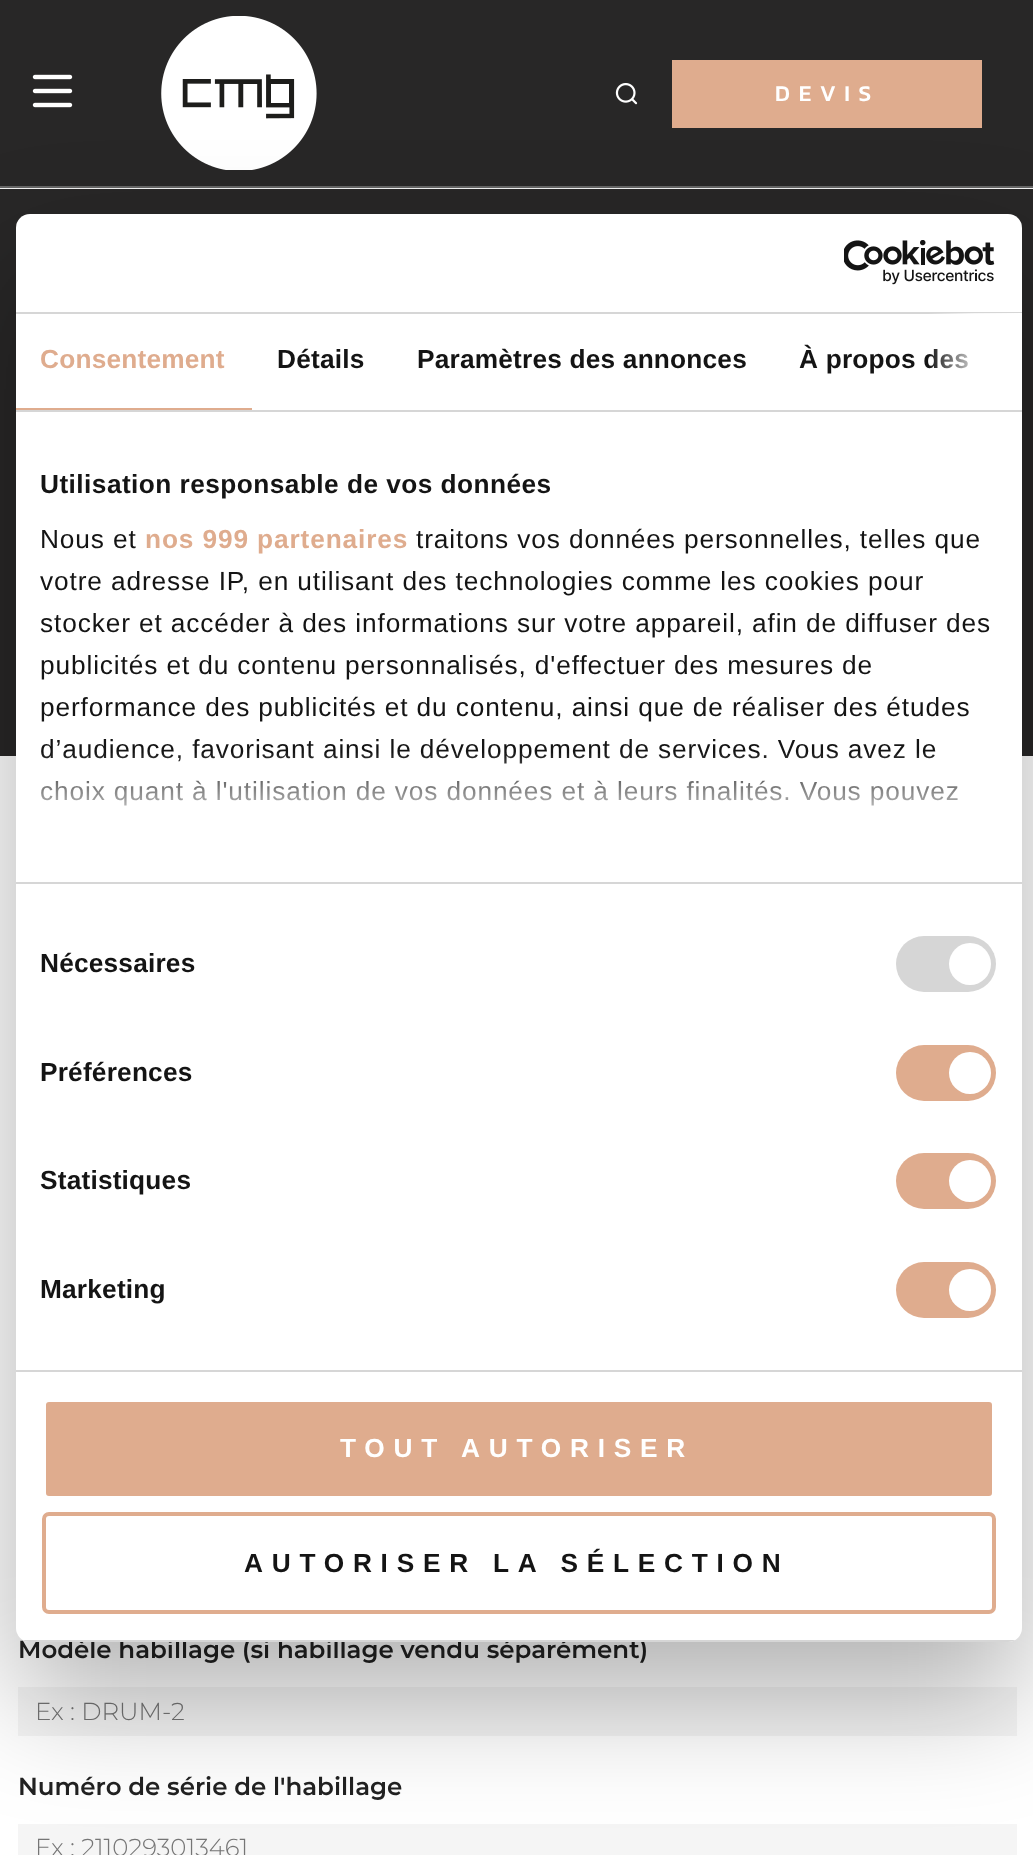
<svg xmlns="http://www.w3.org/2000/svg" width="1033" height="1855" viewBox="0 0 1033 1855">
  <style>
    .t1 { font: 500 22.75px Kanit; letter-spacing: 8.75px; fill: #fff; }
    .t2 { font: 600 24.5px Montserrat; fill: #222; }
    .t3 { font: 300 24.5px Montserrat; fill: #757575; }
    .t4 { font: bold 26.25px Liberation Sans; letter-spacing: 0.2px; fill: #dfac8e; }
    .t5 { font: bold 26.25px Liberation Sans; letter-spacing: 0.2px; fill: #141414; }
    .t6 { font: bold 26.25px Liberation Sans; letter-spacing: 0.45px; fill: #141414; }
    .t7 { font: 26.25px Liberation Sans; letter-spacing: 0.88px; fill: #141414; }
    .t8 { font: bold 26.25px Liberation Sans; letter-spacing: 0.88px; fill: #dfac8e; }
    .t9 { font: bold 26.25px Liberation Sans; letter-spacing: 8.75px; fill: #fff; }
    .t10 { font: bold 26.25px Liberation Sans; letter-spacing: 8.75px; fill: #141414; }
  </style>
  <defs>
    <linearGradient id="g1" gradientUnits="userSpaceOnUse" x1="1021" y1="361" x2="928" y2="361"><stop offset="0" stop-color="#fff"/><stop offset="0.5" stop-color="#fff" stop-opacity="0.8"/><stop offset="1" stop-color="#fff" stop-opacity="0"/></linearGradient>
    <linearGradient id="g2" gradientUnits="userSpaceOnUse" x1="507" y1="882" x2="507" y2="751"><stop offset="0" stop-color="#fff"/><stop offset="0.5" stop-color="#fff" stop-opacity="0.8"/><stop offset="1" stop-color="#fff" stop-opacity="0"/></linearGradient>
    <clipPath id="clip1"><rect x="16" y="214" width="1006" height="1428" rx="14"/></clipPath>
  </defs>
  <rect width="100%" height="100%" fill="#fff"/>
  <rect x="0" y="188" width="1033" height="1" fill="#f1f1f1"/>
  <rect x="0" y="0" width="1033" height="186" fill="#282727"/>
  <rect x="0" y="186" width="1033" height="2" fill="#666"/>
  <image x="32" y="74" width="41" height="34" href="images/1.png"/>
  <image x="161" y="16" width="156" height="154" href="images/2.png"/>
  <image x="615" y="83" width="23" height="22" href="images/3.png"/>
  <rect x="672" y="60" width="310" height="68" fill="#dfac8e"/>
  <text x="775" y="101" class="t1">DEVIS</text>
  <rect x="0" y="189" width="1033" height="567" fill="#282727"/>
  <text x="18" y="1658" class="t2">Modèle habillage (si habillage vendu séparément)</text>
  <rect x="18" y="1687" width="999" height="49" fill="#f5f5f5"/>
  <text x="35" y="1720" class="t3">Ex : DRUM-2</text>
  <text x="18" y="1795" class="t2">Numéro de série de l'habillage</text>
  <rect x="18" y="1824" width="999" height="31" fill="#f5f5f5"/>
  <text x="35" y="1856" class="t3">Ex : 2110293013461</text>
  <rect x="16" y="270" width="1006" height="1428" rx="14" fill="#0000004d" filter="blur(59.5px)"/>
  <rect x="16" y="214" width="1006" height="1428" rx="14" fill="#fff"/>
  <rect x="16" y="312" width="1006" height="2" fill="#d6d6d6"/>
  <image x="844" y="240" width="151" height="45" href="images/4.png"/>
  <rect x="16" y="410" width="1006" height="2" fill="#d6d6d6"/>
  <rect x="16" y="408" width="236" height="2" fill="#dfac8e"/>
  <text x="40" y="368" class="t4">Consentement</text>
  <text x="277" y="368" class="t5">Détails</text>
  <text x="417" y="368" class="t5">Paramètres des annonces</text>
  <text x="799" y="368" class="t5">À propos des</text>
  <rect x="929" y="313" width="93" height="56" fill="url(#g1)"/>
  <rect x="16" y="882" width="1006" height="2" fill="#d6d6d6"/>
  <text x="40" y="493" class="t6">Utilisation responsable de vos données</text>
  <text x="40" y="548" class="t7">Nous et</text>
  <text x="145" y="548" class="t8">nos 999 partenaires</text>
  <text x="416" y="548" class="t7">traitons vos données personnelles, telles que</text>
  <text x="40" y="590" class="t7">votre adresse IP, en utilisant des technologies comme les cookies pour</text>
  <text x="40" y="632" class="t7">stocker et accéder à des informations sur votre appareil, afin de diffuser des</text>
  <text x="40" y="674" class="t7">publicités et du contenu personnalisés, d'effectuer des mesures de</text>
  <text x="40" y="716" class="t7">performance des publicités et du contenu, ainsi que de réaliser des études</text>
  <text x="40" y="758" class="t7">d’audience, favorisant ainsi le développement de services. Vous avez le</text>
  <text x="40" y="800" class="t7">choix quant à l'utilisation de vos données et à leurs finalités. Vous pouvez</text>
  <rect x="41" y="753" width="917" height="53" fill="url(#g2)"/>
  <rect x="16" y="1370" width="1006" height="2" fill="#d6d6d6"/>
  <text x="40" y="972" class="t5">Nécessaires</text>
  <rect x="896" y="936" width="100" height="56" rx="28" fill="#d6d6d6"/>
  <circle cx="970" cy="964" r="21" fill="#fff"/>
  <text x="40" y="1081" class="t5">Préférences</text>
  <rect x="896" y="1045" width="100" height="56" rx="28" fill="#dfac8e"/>
  <circle cx="970" cy="1073" r="21" fill="#fff"/>
  <text x="40" y="1189" class="t5">Statistiques</text>
  <rect x="896" y="1153" width="100" height="56" rx="28" fill="#dfac8e"/>
  <circle cx="970" cy="1181" r="21" fill="#fff"/>
  <text x="40" y="1298" class="t5">Marketing</text>
  <rect x="896" y="1262" width="100" height="56" rx="28" fill="#dfac8e"/>
  <circle cx="970" cy="1290" r="21" fill="#fff"/>
  <g clip-path="url(#clip1)">
    <rect x="16" y="1640" width="1006" height="2" fill="#d6d6d6"/>
  </g>
  <rect x="44" y="1400" width="950" height="98" rx="5" fill="#dfac8e" stroke="#fff" stroke-width="4"/>
  <text x="340" y="1457" class="t9">TOUT AUTORISER</text>
  <rect x="44" y="1514" width="950" height="98" rx="5" fill="none" stroke="#dfac8e" stroke-width="4"/>
  <text x="244" y="1572" class="t10">AUTORISER LA SÉLECTION</text>
</svg>
